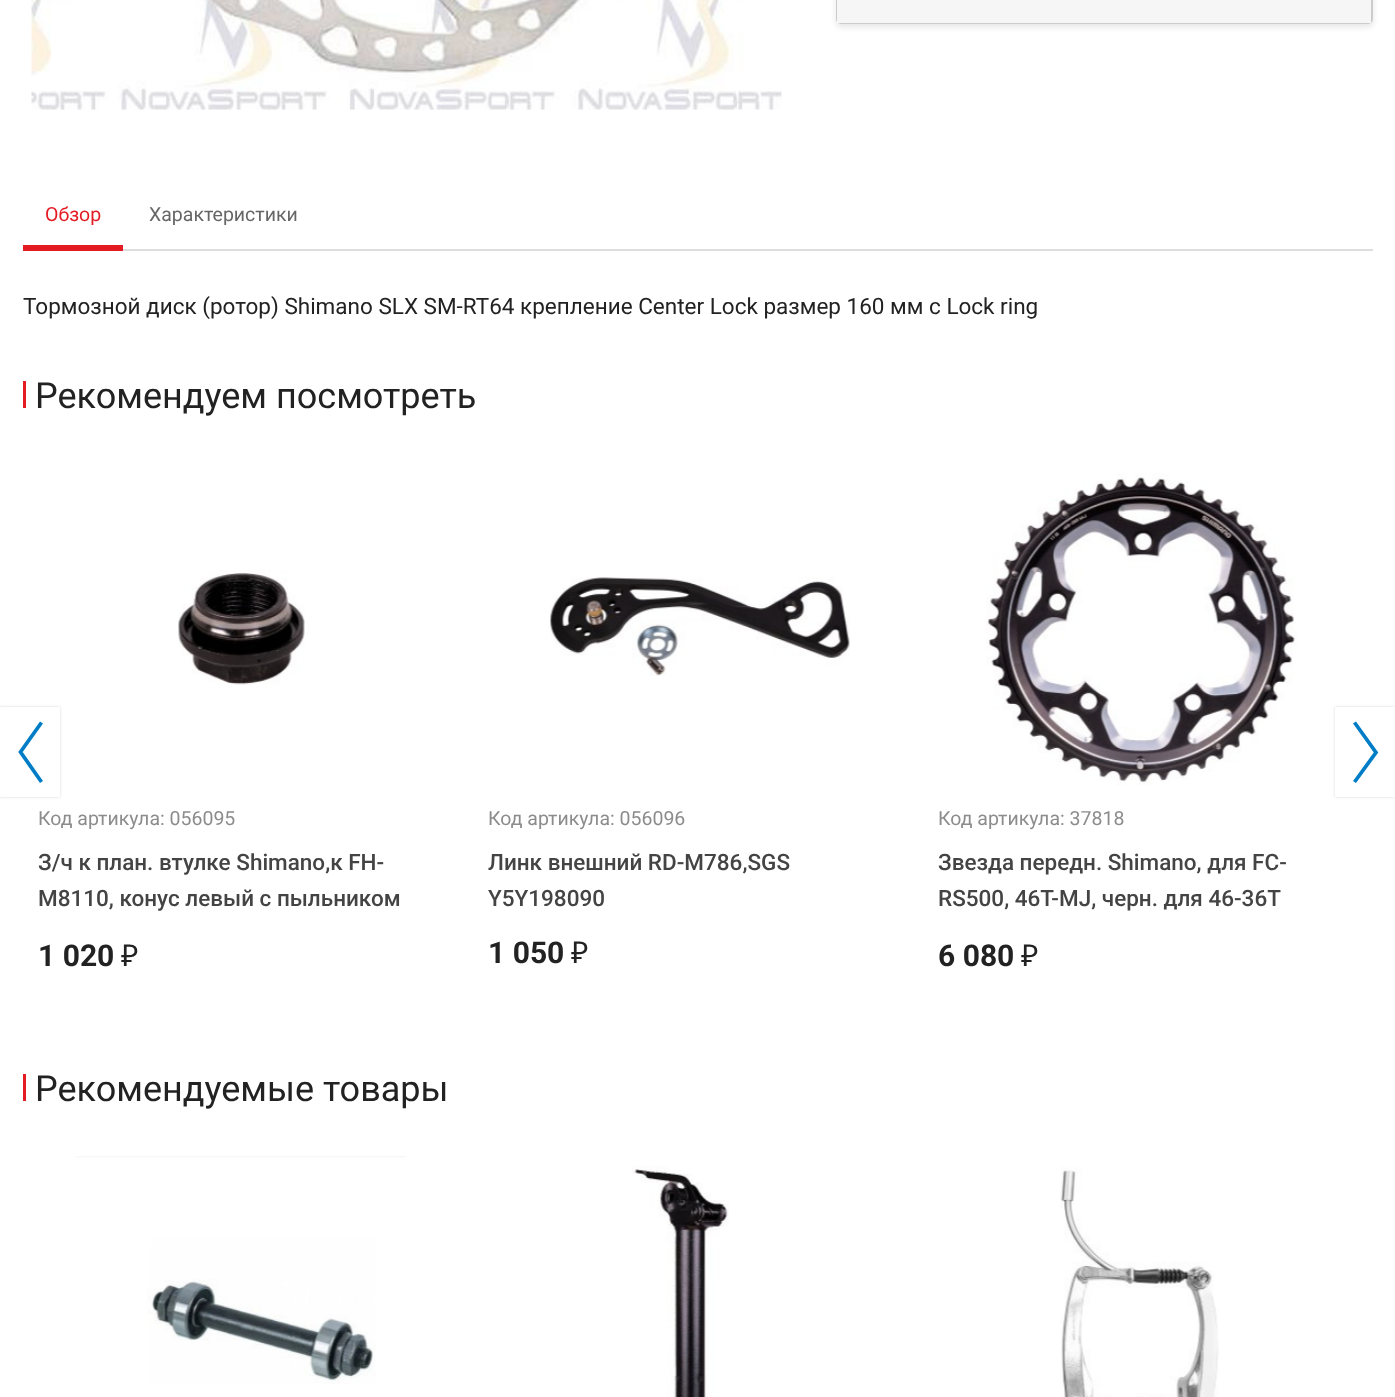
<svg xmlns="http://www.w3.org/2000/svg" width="1395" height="1397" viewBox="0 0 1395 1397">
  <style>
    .t1 { font: 19.5px Roboto; fill: #e51b24; }
    .t2 { font: 19.5px Roboto; fill: #666; }
    .t3 { font: 22.5px Roboto; fill: #222; }
    .t4 { font: 36px Roboto; fill: #222; }
    .t5 { font: 19.5px Roboto; fill: #8c8c8c; }
    .t6 { font: 500 22.5px Roboto; fill: #444; }
    .t7 { font: bold 30px Roboto; fill: #222; }
    .t8 { font: 30px Noto Sans; fill: #222; }
  </style>
  <rect width="100%" height="100%" fill="#fff"/>
  <image x="31" y="0" width="751" height="110" href="images/1.png"/>
  <rect x="836" y="-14" width="537" height="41" rx="5" fill="#0000001a" filter="blur(3px)"/>
  <rect x="837" y="-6" width="535" height="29" rx="4" fill="none" stroke="#ccc" stroke-width="2"/>
  <rect x="837" y="0" width="534" height="23" fill="#f6f6f6"/>
  <rect x="123" y="249" width="1250" height="2" fill="#ddd"/>
  <rect x="23" y="245" width="100" height="6" fill="#e51b24"/>
  <text x="45" y="221" class="t1">Обзор</text>
  <text x="149" y="221" class="t2">Характеристики</text>
  <text x="23" y="314" class="t3">Тормозной диск (ротор) Shimano SLX SM-RT64 крепление Center Lock размер 160 мм с Lock ring</text>
  <rect x="23" y="381" width="3" height="27" fill="#e51b24"/>
  <text x="35" y="408" class="t4">Рекомендуем посмотреть</text>
  <rect x="0" y="707" width="60" height="90" fill="#d9d9d9" filter="blur(1.5px)"/>
  <rect x="0" y="707" width="60" height="90" fill="#fff"/>
  <path d="M41.5 722.5L20.5 752L41.5 782L20.5 752" fill="none" stroke="#007dc6" stroke-width="3.7"/>
  <rect x="1335" y="707" width="60" height="90" fill="#d9d9d9" filter="blur(1.5px)"/>
  <rect x="1335" y="707" width="60" height="90" fill="#fff"/>
  <path d="M1354.5 782L1376 752.5L1354.5 722.5L1376 752.5" fill="none" stroke="#007dc6" stroke-width="3.7"/>
  <image x="178" y="570" width="127" height="115" href="images/2.png"/>
  <text x="38" y="825" class="t5">Код артикула: 056095</text>
  <text x="38" y="870" class="t6">З/ч к план. втулке Shimano,к FH-</text>
  <text x="38" y="906" class="t6">M8110, конус левый с пыльником</text>
  <text x="38" y="966" class="t7">1 020</text>
  <text x="121" y="966" class="t8">₽</text>
  <image x="550" y="577" width="300" height="99" href="images/3.png"/>
  <text x="488" y="825" class="t5">Код артикула: 056096</text>
  <text x="488" y="870" class="t6">Линк внешний RD-M786,SGS</text>
  <text x="488" y="906" class="t6">Y5Y198090</text>
  <text x="488" y="963" class="t7">1 050</text>
  <text x="571" y="963" class="t8">₽</text>
  <image x="986" y="473" width="311" height="312" href="images/4.png"/>
  <text x="938" y="825" class="t5">Код артикула: 37818</text>
  <text x="938" y="870" class="t6">Звезда передн. Shimano, для FC-</text>
  <text x="938" y="906" class="t6">RS500, 46T-MJ, черн. для 46-36Т</text>
  <text x="938" y="966" class="t7">6 080</text>
  <text x="1021" y="966" class="t8">₽</text>
  <rect x="23" y="1074" width="3" height="27" fill="#e51b24"/>
  <text x="35" y="1101" class="t4">Рекомендуемые товары</text>
  <image x="76" y="1156" width="330" height="228" href="images/5.png"/>
  <image x="632" y="1165" width="97" height="232" href="images/6.png"/>
  <image x="1060" y="1166" width="159" height="231" href="images/7.png"/>
</svg>
